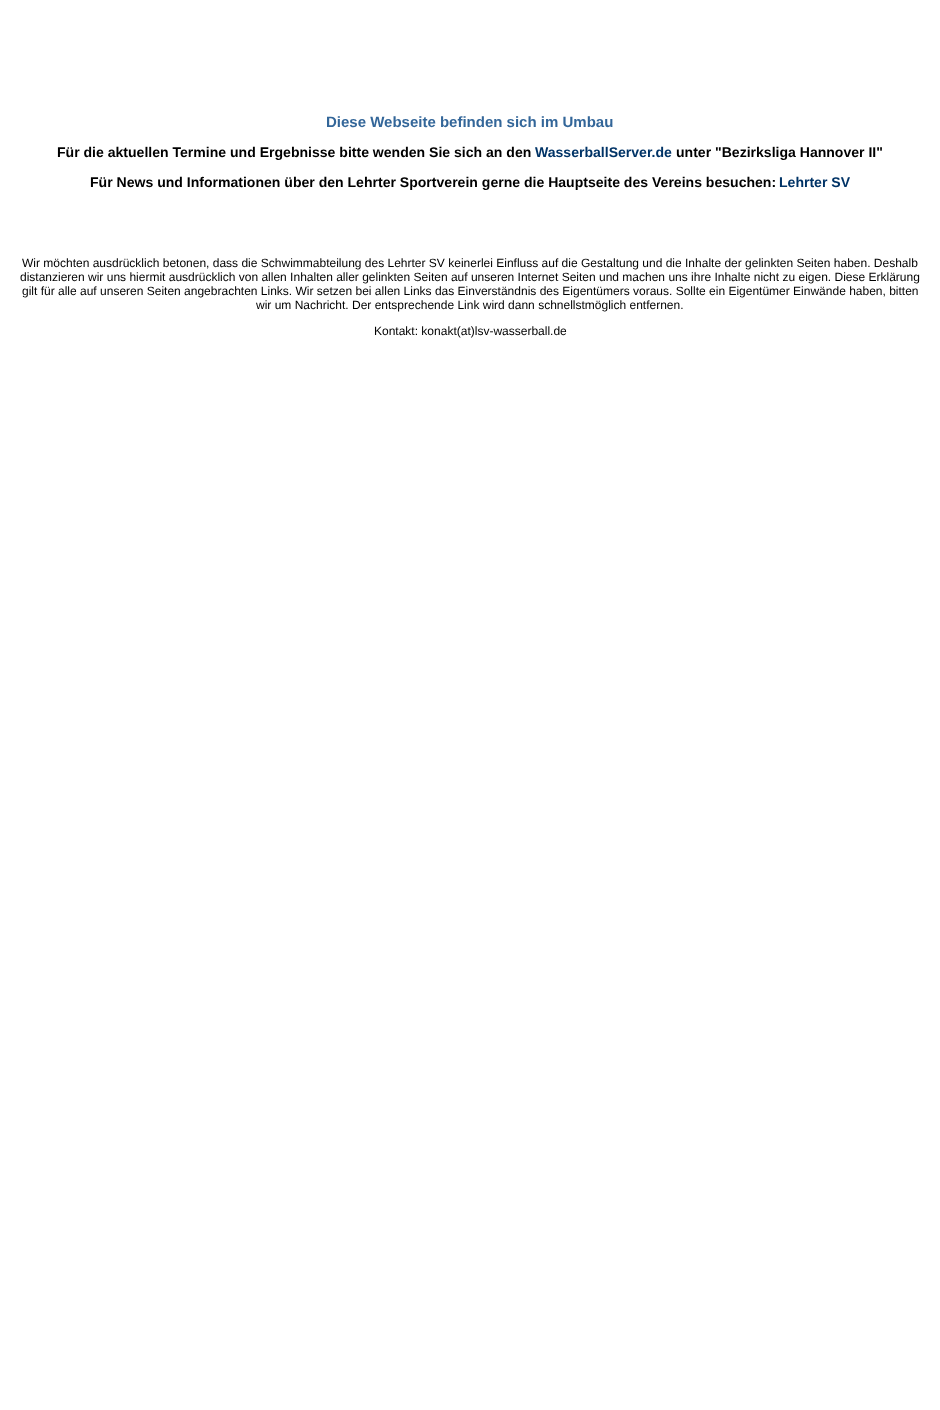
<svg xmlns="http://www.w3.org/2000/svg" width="940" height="1410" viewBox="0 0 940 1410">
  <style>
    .t1 { font: bold 15px Liberation Sans; fill: #369; }
    .t2 { font: bold 14.05px Liberation Sans; fill: #000; }
    .t3 { font: bold 14.05px Liberation Sans; fill: #036; }
    .t4 { font: 12px Liberation Sans; fill: #000; }
  </style>
  <rect width="100%" height="100%" fill="#fff"/>
  <text x="326" y="127" class="t1">Diese Webseite befinden sich im Umbau</text>
  <text x="57" y="157" class="t2">Für die aktuellen Termine und Ergebnisse bitte wenden Sie sich an den</text>
  <text x="535" y="157" class="t3">WasserballServer.de</text>
  <text x="676" y="157" class="t2">unter "Bezirksliga Hannover II"</text>
  <text x="90" y="187" class="t2">Für News und Informationen über den Lehrter Sportverein gerne die Hauptseite des Vereins besuchen:</text>
  <text x="779" y="187" class="t3">Lehrter SV</text>
  <text x="22" y="267" class="t4">Wir möchten ausdrücklich betonen, dass die Schwimmabteilung des Lehrter SV keinerlei Einfluss auf die Gestaltung und die Inhalte der gelinkten Seiten haben. Deshalb</text>
  <text x="20" y="281" class="t4">distanzieren wir uns hiermit ausdrücklich von allen Inhalten aller gelinkten Seiten auf unseren Internet Seiten und machen uns ihre Inhalte nicht zu eigen. Diese Erklärung</text>
  <text x="22" y="295" class="t4">gilt für alle auf unseren Seiten angebrachten Links. Wir setzen bei allen Links das Einverständnis des Eigentümers voraus. Sollte ein Eigentümer Einwände haben, bitten</text>
  <text x="256" y="309" class="t4">wir um Nachricht. Der entsprechende Link wird dann schnellstmöglich entfernen.</text>
  <text x="374" y="335" class="t4">Kontakt: konakt(at)lsv-wasserball.de</text>
</svg>
